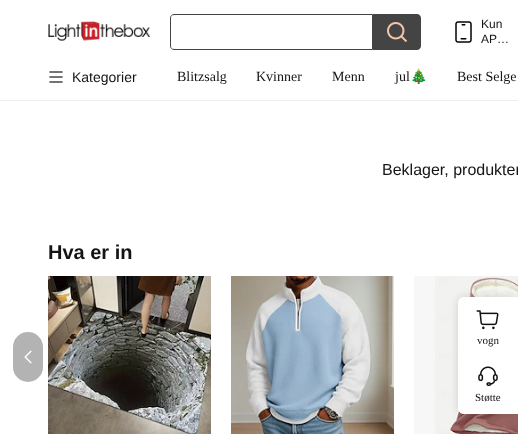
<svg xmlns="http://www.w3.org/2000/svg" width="518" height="434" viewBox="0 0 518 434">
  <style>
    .t1 { font: 12px Liberation Sans; fill: #141414; }
    .t2 { font: 14px Liberation Sans; fill: #141414; }
    .t3 { font: 14px Liberation Serif; fill: #141414; }
    .t4 { font: 14px Noto Color Emoji; fill: #141414; }
    .t5 { font: 16px Liberation Sans; fill: #141414; }
    .t6 { font: bold 20px Liberation Sans; fill: #141414; }
    .t7 { font: 11px Liberation Serif; fill: #141414; }
  </style>
  <rect width="100%" height="100%" fill="#fff"/>
  <rect x="414" y="276" width="21" height="158" fill="#f7f7f7"/>
  <rect x="0" y="100" width="518" height="1" fill="#eee"/>
  <image x="48" y="21" width="102" height="20" href="images/1.png"/>
  <path d="M174 14.5H372.5V49.5H174C172 49.5 170.5 48 170.5 46V18C170.5 16 172 14.5 174 14.5Z" fill="none" stroke="#444"/>
  <path d="M373 14H417C419 14 421 16 421 18V46C421 48 419 50 417 50H373Z" fill="#444"/>
  <image x="387" y="22" width="21" height="21" href="images/2.png"/>
  <image x="455" y="21" width="17" height="22" href="images/3.png"/>
  <text x="481" y="28" class="t1">Kun</text>
  <text x="481" y="43" class="t1">AP…</text>
  <image x="49" y="71" width="14" height="12" href="images/4.png"/>
  <text x="72" y="82" class="t2">Kategorier</text>
  <text x="177" y="81" class="t3">Blitzsalg</text>
  <text x="256" y="81" class="t3">Kvinner</text>
  <text x="332" y="81" class="t3">Menn</text>
  <text x="395" y="81" class="t3">jul</text>
  <text x="410" y="81" class="t4">🎄</text>
  <text x="457" y="81" class="t3">Best Selge</text>
  <text x="382" y="175" class="t5">Beklager, produkter</text>
  <text x="48" y="259" class="t6">Hva er in</text>
  <rect x="13" y="332" width="30" height="50" rx="15" fill="#b3b3b3"/>
  <image x="24" y="350" width="8" height="14" href="images/5.png"/>
  <image x="48" y="276" width="163" height="158" href="images/6.png"/>
  <image x="231" y="276" width="163" height="158" href="images/7.png"/>
  <image x="435" y="276" width="83" height="158" href="images/8.png"/>
  <rect x="458" y="297" width="60" height="117" rx="6" fill="#00000026" filter="blur(4px)"/>
  <path d="M464 297H518V414H464C460.5 414 458 411.5 458 408V303C458 299.5 460.5 297 464 297Z" fill="#fff"/>
  <image x="476" y="310" width="23" height="20" href="images/9.png"/>
  <text x="477" y="344" class="t7">vogn</text>
  <image x="478" y="366" width="20" height="20" href="images/10.png"/>
  <text x="475" y="401" class="t7">Støtte</text>
</svg>
